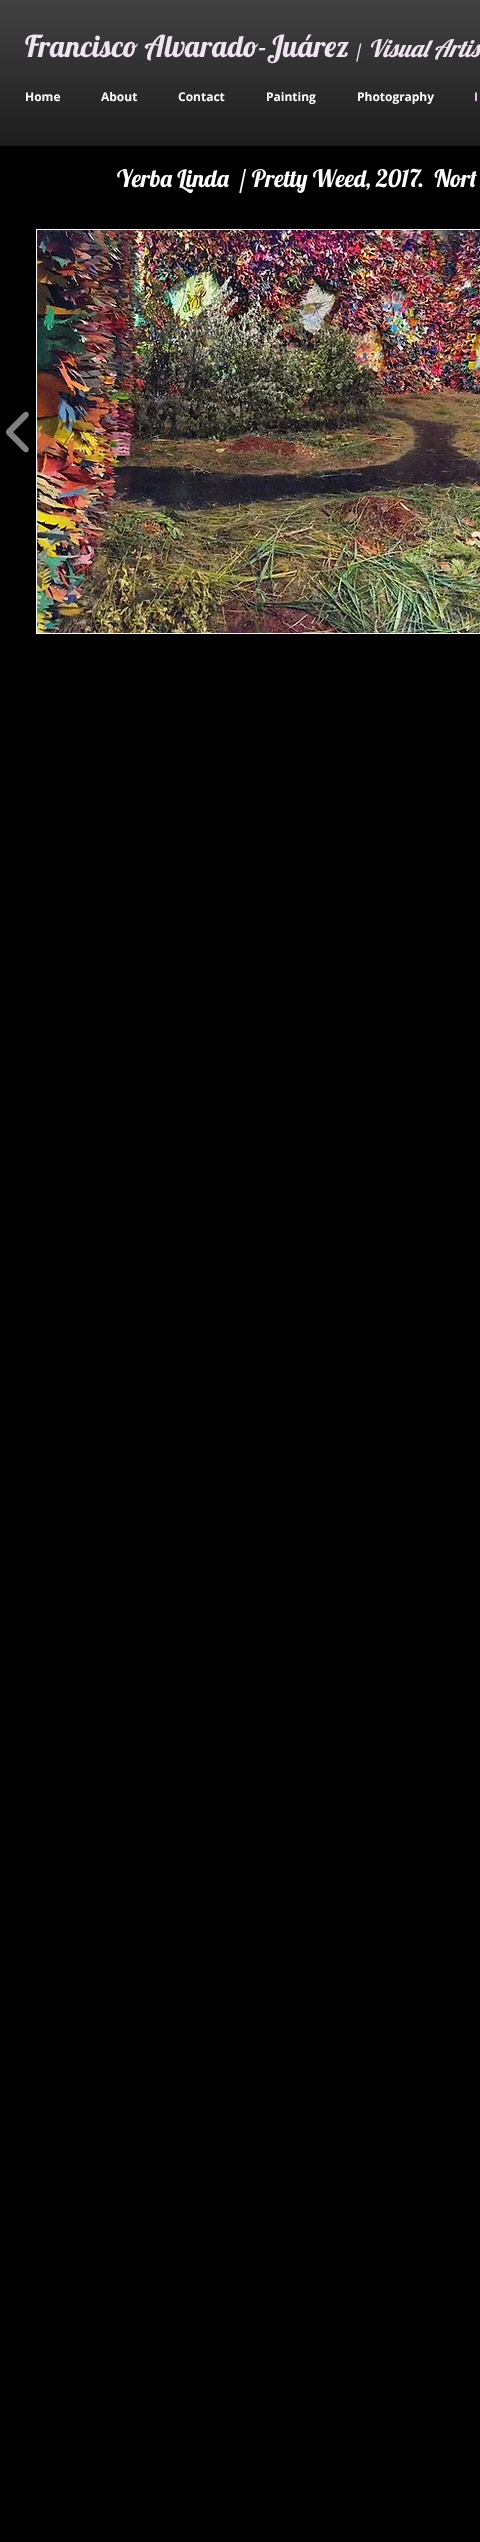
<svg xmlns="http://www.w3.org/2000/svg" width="480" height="2542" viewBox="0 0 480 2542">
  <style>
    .t1 { font: 30px Lobster; fill: #f0e4f2; }
    .t2 { font: 18px Lobster; fill: #f0e4f2; }
    .t3 { font: italic 24px Lobster; fill: #f0e4f2; }
    .t4 { font: bold 12px Open Sans; fill: #fff; }
    .t5 { font: bold 12px Open Sans; fill: #eed3f2; }
    .t6 { font: 24px Lobster; fill: #fff; }
  </style>
  <rect width="100%" height="100%" fill="#000"/>
  <image x="0" y="0" width="480" height="146" href="images/1.png"/>
  <text x="25" y="57" class="t1">Francisco Alvarado-Juárez</text>
  <text x="356" y="57" class="t2">/</text>
  <text x="368" y="57" class="t3">Visual Artis</text>
  <text x="25" y="101" class="t4">Home</text>
  <text x="101" y="101" class="t4">About</text>
  <text x="178" y="101" class="t4">Contact</text>
  <text x="266" y="101" class="t4">Painting</text>
  <text x="357" y="101" class="t4">Photography</text>
  <text x="474" y="101" class="t5">I</text>
  <text x="117" y="187" class="t6" xml:space="preserve">Yerba Linda  / Pretty Weed, 2017.  Nort</text>
  <image x="5" y="411" width="24" height="42" href="images/2.png"/>
  <rect x="36" y="229" width="444" height="405" fill="#fff"/>
  <image x="37" y="230" width="443" height="403" href="images/3.png"/>
</svg>
